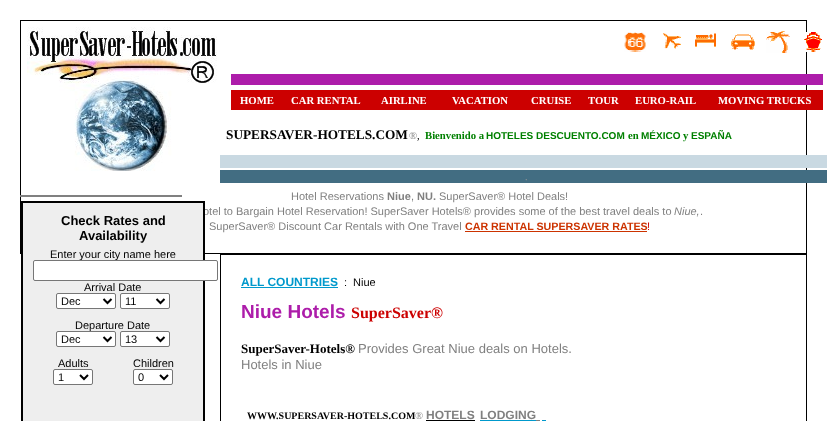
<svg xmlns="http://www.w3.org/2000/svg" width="827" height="421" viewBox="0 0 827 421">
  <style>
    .t1 { font: bold 10.7px Liberation Serif; fill: #fff; }
    .t2 { font: bold 13.3px Liberation Serif; fill: #000; }
    .t3 { font: 10.7px Liberation Serif; fill: #808080; }
    .t4 { font: 10.7px Liberation Serif; fill: #000; }
    .t5 { font: bold 10.7px Liberation Serif; fill: #008000; }
    .t6 { font: bold 10px Liberation Sans; fill: #008000; }
    .t7 { font: 10px Liberation Serif; fill: #999; }
    .t8 { font: 11px Liberation Sans; fill: #808080; }
    .t9 { font: bold 11px Liberation Sans; fill: #808080; }
    .t10 { font: italic 11px Liberation Sans; fill: #808080; }
    .t11 { font: bold 10.7px Liberation Sans; fill: #c30; }
    .t12 { font: 11px Liberation Sans; fill: #c00; }
    .t13 { font: bold 13px Liberation Sans; fill: #000; }
    .t14 { font: 11px Liberation Sans; fill: #000; }
    .t15 { font: bold 12px Liberation Sans; fill: #09c; }
    .t16 { font: bold 19px Liberation Sans; fill: #ad1daa; }
    .t17 { font: bold 16px Liberation Serif; fill: #c00; }
    .t18 { font: bold 13px Liberation Serif; fill: #000; }
    .t19 { font: 13px Liberation Sans; fill: #808080; }
    .t20 { font: bold 10px Liberation Serif; fill: #000; }
    .t21 { font: bold 12px Liberation Sans; fill: #808080; }
  </style>
  <rect width="100%" height="100%" fill="#fff"/>
  <rect x="20.5" y="20.5" width="786" height="233" fill="none" stroke="#000"/>
  <image x="27" y="27" width="190" height="144" href="images/1.png"/>
  <image x="624" y="32" width="22" height="20" href="images/2.png"/>
  <image x="663" y="33" width="18" height="16" href="images/3.png"/>
  <image x="695" y="33" width="21" height="14" href="images/4.png"/>
  <image x="731" y="34" width="24" height="16" href="images/5.png"/>
  <image x="766" y="31" width="24" height="22" href="images/6.png"/>
  <image x="804" y="32" width="18" height="20" href="images/7.png"/>
  <rect x="231" y="74" width="592" height="11" fill="#ad1daa"/>
  <rect x="231" y="90" width="592" height="20" fill="#c00"/>
  <text x="240" y="104" class="t1">HOME</text>
  <text x="291" y="104" class="t1">CAR RENTAL</text>
  <text x="381" y="104" class="t1">AIRLINE</text>
  <text x="452" y="104" class="t1">VACATION</text>
  <text x="531" y="104" class="t1">CRUISE</text>
  <text x="588" y="104" class="t1">TOUR</text>
  <text x="635" y="104" class="t1">EURO-RAIL</text>
  <text x="718" y="104" class="t1">MOVING TRUCKS</text>
  <text x="226" y="139" class="t2">SUPERSAVER-HOTELS.COM</text>
  <text x="409" y="139" class="t3">®</text>
  <text x="417" y="139" class="t4">,</text>
  <text x="425" y="139" class="t5">Bienvenido a</text>
  <text x="486" y="139" class="t6">HOTELES DESCUENTO.COM</text>
  <text x="628" y="139" class="t5">en</text>
  <text x="641" y="139" class="t6">MÉXICO</text>
  <text x="683" y="139" class="t5">y</text>
  <text x="691" y="139" class="t6">ESPAÑA</text>
  <rect x="220" y="155" width="607" height="13" fill="#c9d9e2"/>
  <rect x="220" y="170" width="607" height="13" fill="#426d82"/>
  <text x="525" y="180" class="t7">.</text>
  <text x="291" y="200" class="t8">Hotel Reservations</text>
  <text x="387" y="200" class="t9">Niue</text>
  <text x="411" y="200" class="t8">,</text>
  <text x="417" y="200" class="t9">NU.</text>
  <text x="439" y="200" class="t8">SuperSaver® Hotel Deals!</text>
  <text x="203" y="215" class="t8">otel to Bargain Hotel Reservation! SuperSaver Hotels® provides some of the best travel deals to</text>
  <text x="674" y="215" class="t10">Niue,</text>
  <text x="700" y="215" class="t8">.</text>
  <text x="209" y="230" class="t8">SuperSaver® Discount Car Rentals with One Travel</text>
  <text x="465" y="230" class="t11">CAR RENTAL SUPERSAVER RATES</text>
  <rect x="465" y="231" width="182" height="1" fill="#c30"/>
  <text x="647" y="230" class="t12">!</text>
  <rect x="20" y="195" width="162" height="2" fill="#808080"/>
  <rect x="22" y="202" width="182" height="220" fill="#eee" stroke="#000" stroke-width="2"/>
  <text x="61" y="225" class="t13">Check Rates and</text>
  <text x="79" y="240" class="t13">Availability</text>
  <text x="50" y="258" class="t14">Enter your city name here</text>
  <rect x="33.5" y="260.5" width="184" height="20" rx="1.5" fill="#fff" stroke="#767676"/>
  <text x="84" y="291" class="t14">Arrival Date</text>
  <rect x="56.5" y="293.5" width="59" height="15" rx="1.5" fill="#fff" stroke="#767676"/>
  <path d="M103.5 299L107.5 303L111.5 299" fill="none" stroke="#000" stroke-width="2"/>
  <text x="61" y="305" class="t14">Dec</text>
  <rect x="120.5" y="293.5" width="49" height="15" rx="1.5" fill="#fff" stroke="#767676"/>
  <path d="M156.5 299L160.5 303L164.5 299" fill="none" stroke="#000" stroke-width="2"/>
  <text x="125" y="305" class="t14">11</text>
  <text x="75" y="329" class="t14">Departure Date</text>
  <rect x="56.5" y="331.5" width="59" height="15" rx="1.5" fill="#fff" stroke="#767676"/>
  <path d="M103.5 337L107.5 341L111.5 337" fill="none" stroke="#000" stroke-width="2"/>
  <text x="61" y="343" class="t14">Dec</text>
  <rect x="120.5" y="331.5" width="49" height="15" rx="1.5" fill="#fff" stroke="#767676"/>
  <path d="M156.5 337L160.5 341L164.5 337" fill="none" stroke="#000" stroke-width="2"/>
  <text x="125" y="343" class="t14">13</text>
  <text x="58" y="367" class="t14">Adults</text>
  <rect x="53.5" y="369.5" width="39" height="15" rx="1.5" fill="#fff" stroke="#767676"/>
  <path d="M80 375L84 379L88 375" fill="none" stroke="#000" stroke-width="2"/>
  <text x="58" y="381" class="t14">1</text>
  <text x="133" y="367" class="t14">Children</text>
  <rect x="133.5" y="369.5" width="39" height="15" rx="1.5" fill="#fff" stroke="#767676"/>
  <path d="M160 375L164 379L168 375" fill="none" stroke="#000" stroke-width="2"/>
  <text x="138" y="381" class="t14">0</text>
  <rect x="220.5" y="254.5" width="586" height="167" fill="none" stroke="#000"/>
  <text x="241" y="286" class="t15">ALL COUNTRIES</text>
  <rect x="241" y="287" width="97" height="1" fill="#09c"/>
  <text x="344" y="286" class="t14">:</text>
  <text x="353" y="286" class="t14">Niue</text>
  <text x="241" y="318" class="t16">Niue Hotels</text>
  <text x="351" y="318" class="t17">SuperSaver®</text>
  <text x="241" y="353" class="t18">SuperSaver-Hotels®</text>
  <text x="358" y="353" class="t19">Provides Great Niue deals on Hotels.</text>
  <text x="241" y="369" class="t19">Hotels in Niue</text>
  <text x="247" y="419" class="t20">WWW.SUPERSAVER-HOTELS.COM</text>
  <text x="415" y="419" class="t3">®</text>
  <text x="426" y="419" class="t21">HOTELS</text>
  <rect x="426" y="420" width="49" height="1" fill="#000"/>
  <text x="480" y="419" class="t21">LODGING</text>
  <rect x="480" y="420" width="56" height="1" fill="#09c"/>
  <rect x="536" y="420" width="4" height="1" fill="#808080"/>
  <rect x="542" y="420" width="4" height="1" fill="#09c"/>
</svg>
